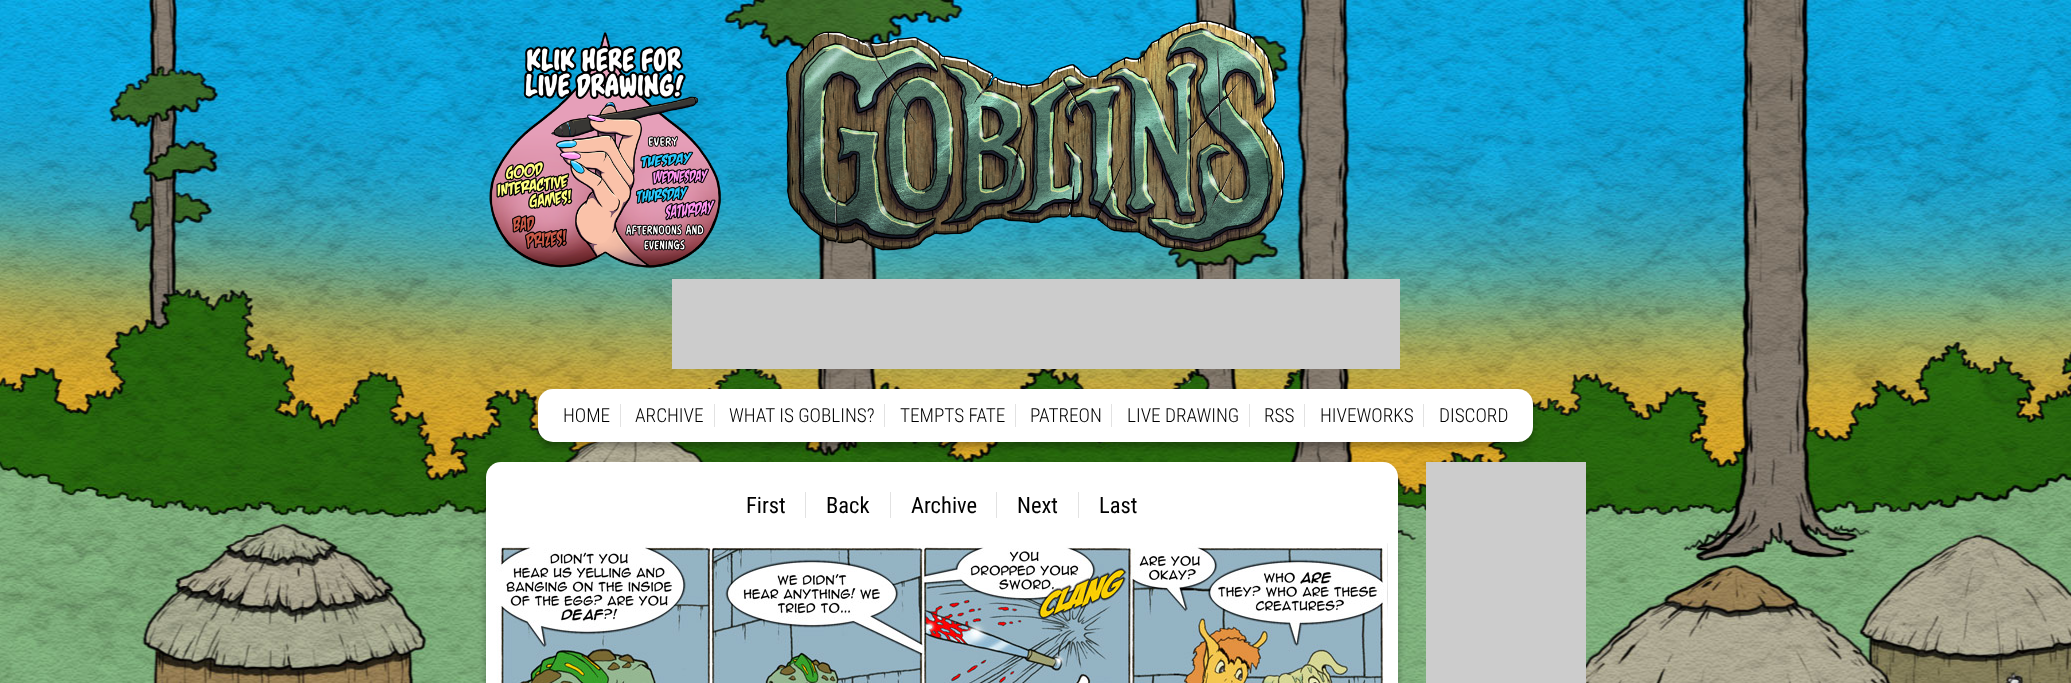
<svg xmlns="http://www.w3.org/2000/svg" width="2071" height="683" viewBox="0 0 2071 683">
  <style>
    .t1 { font: 300 19.25px Roboto Condensed; fill: #000; }
    .t2 { font: 22.5px Roboto Condensed; fill: #000; }
  </style>
  <rect width="100%" height="100%" fill="#fff"/>
  <image x="0" y="0" width="2071" height="683" href="images/1.png"/>
  <image x="489" y="32" width="232" height="236" href="images/2.png"/>
  <image x="786" y="20" width="499" height="232" href="images/3.png"/>
  <rect x="672" y="279" width="728" height="90" fill="#ccc"/>
  <rect x="538" y="394" width="995" height="53" rx="15" fill="#0000004d" filter="blur(3.5px)"/>
  <rect x="538" y="389" width="995" height="53" rx="15" fill="#fff"/>
  <rect x="620" y="404" width="1" height="23" fill="#e2e2e2"/>
  <text x="563" y="422" class="t1">HOME</text>
  <rect x="714" y="404" width="1" height="23" fill="#e2e2e2"/>
  <text x="635" y="422" class="t1">ARCHIVE</text>
  <rect x="884" y="404" width="1" height="23" fill="#e2e2e2"/>
  <text x="729" y="422" class="t1">WHAT IS GOBLINS?</text>
  <rect x="1015" y="404" width="1" height="23" fill="#e2e2e2"/>
  <text x="900" y="422" class="t1">TEMPTS FATE</text>
  <rect x="1111" y="404" width="1" height="23" fill="#e2e2e2"/>
  <text x="1030" y="422" class="t1">PATREON</text>
  <rect x="1249" y="404" width="1" height="23" fill="#e2e2e2"/>
  <text x="1127" y="422" class="t1">LIVE DRAWING</text>
  <rect x="1304" y="404" width="1" height="23" fill="#e2e2e2"/>
  <text x="1264" y="422" class="t1">RSS</text>
  <rect x="1423" y="404" width="1" height="23" fill="#e2e2e2"/>
  <text x="1320" y="422" class="t1">HIVEWORKS</text>
  <text x="1439" y="422" class="t1">DISCORD</text>
  <rect x="486" y="467" width="912" height="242" rx="15" fill="#0000004d" filter="blur(3.5px)"/>
  <rect x="486" y="462" width="912" height="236" rx="15" fill="#fff"/>
  <rect x="805" y="492" width="1" height="26" fill="#e2e2e2"/>
  <text x="746" y="513" class="t2">First</text>
  <rect x="890" y="492" width="1" height="26" fill="#e2e2e2"/>
  <text x="826" y="513" class="t2">Back</text>
  <rect x="996" y="492" width="1" height="26" fill="#e2e2e2"/>
  <text x="911" y="513" class="t2">Archive</text>
  <rect x="1078" y="492" width="1" height="26" fill="#e2e2e2"/>
  <text x="1017" y="513" class="t2">Next</text>
  <text x="1099" y="513" class="t2">Last</text>
  <image x="496" y="543" width="892" height="140" href="images/4.png"/>
  <rect x="1426" y="462" width="160" height="221" fill="#ccc"/>
</svg>
